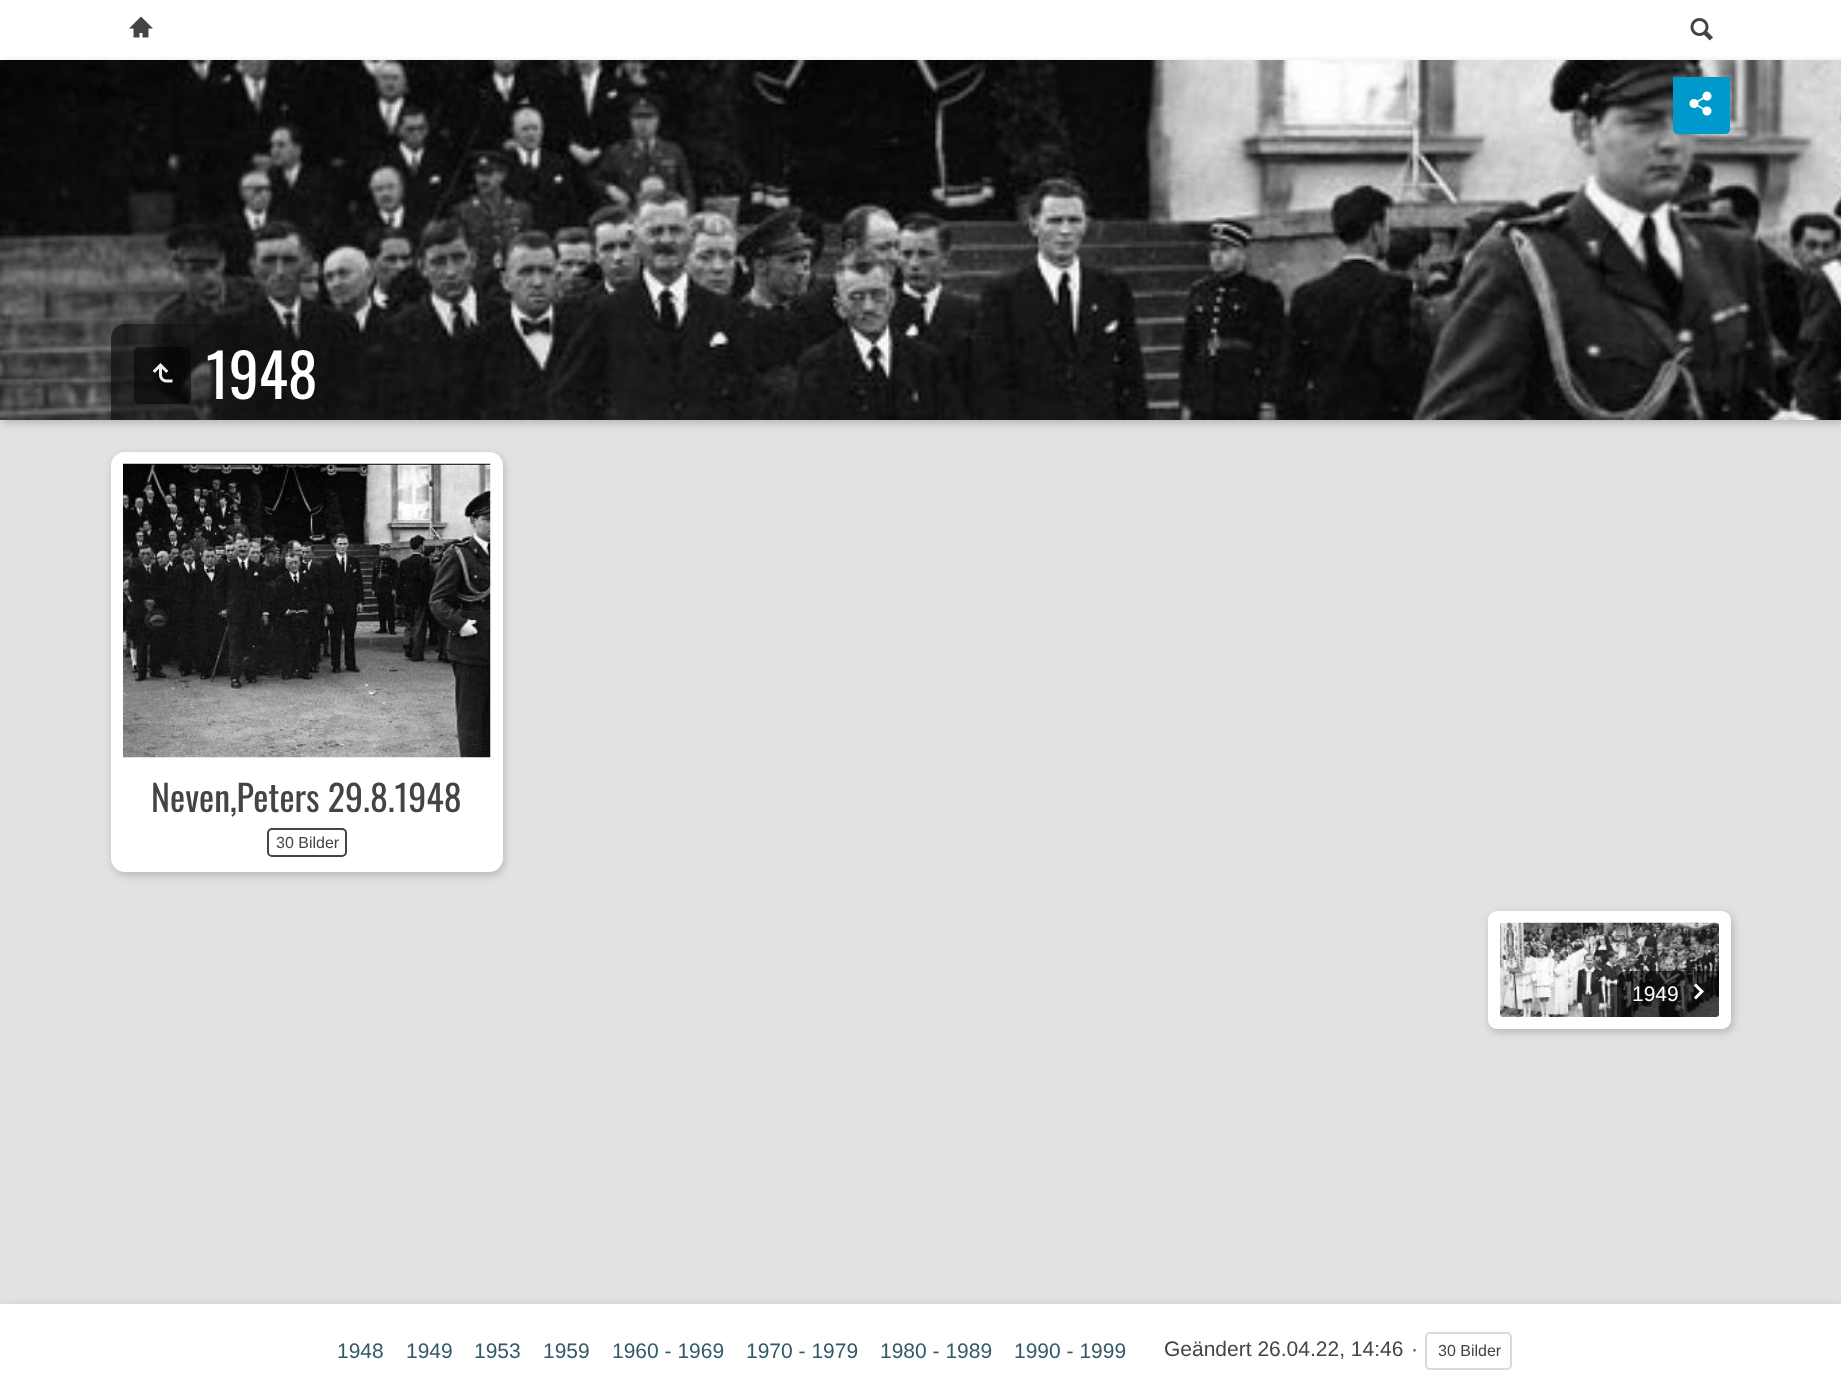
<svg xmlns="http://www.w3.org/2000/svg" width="1841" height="1397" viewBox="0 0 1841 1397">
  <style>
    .t1 { font: 60px Oswald; fill: #fff; }
    .t2 { font: 36px Oswald; fill: #444; }
    .t3 { font: 16px Liberation Sans; fill: #444; }
    .t4 { font: 21px Liberation Sans; fill: #fff; }
    .t5 { font: 21px Liberation Sans; fill: #335966; }
    .t6 { font: 21px Liberation Sans; fill: #444; }
  </style>
  <rect width="100%" height="100%" fill="#e2e2e2"/>
  <rect x="0" y="0" width="1841" height="60" fill="#fff"/>
  <image x="129" y="16" width="24" height="22" href="images/1.png"/>
  <image x="1690" y="18" width="23" height="23" href="images/2.png"/>
  <rect x="2" y="63" width="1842" height="360" fill="#00000033" filter="blur(4.5px)"/>
  <image x="0" y="60" width="1841" height="360" href="images/3.png"/>
  <path d="M1673 77H1730V129C1730 132 1728 134 1725 134H1678C1675 134 1673 132 1673 129Z" fill="#09c"/>
  <image x="1689" y="91" width="23" height="25" href="images/4.png"/>
  <rect x="134" y="347" width="57" height="57" rx="5" fill="#00000080"/>
  <image x="152" y="363" width="21" height="20" href="images/5.png"/>
  <text x="206" y="399" class="t1">1948</text>
  <rect x="113" y="455" width="391" height="420" rx="14" fill="#00000033" filter="blur(4.5px)"/>
  <rect x="111" y="452" width="392" height="420" rx="14" fill="#fff"/>
  <image x="123" y="463" width="368" height="295" href="images/6.png"/>
  <text x="151" y="812" class="t2">Neven,Peters 29.8.1948</text>
  <rect x="268" y="829" width="78" height="27" rx="4" fill="none" stroke="#444" stroke-width="2"/>
  <text x="276" y="848" class="t3">30 Bilder</text>
  <rect x="1490" y="914" width="243" height="118" rx="9" fill="#00000033" filter="blur(4.5px)"/>
  <rect x="1488" y="911" width="243" height="118" rx="9" fill="#fff"/>
  <image x="1500" y="922" width="219" height="95" href="images/7.png"/>
  <path d="M1626 971H1719V1014C1719 1015.5 1717.5 1017 1716 1017H1617V980C1617 975 1621 971 1626 971Z" fill="#00000099"/>
  <text x="1632" y="1001" class="t4">1949</text>
  <image x="1693" y="983" width="11" height="17" href="images/8.png"/>
  <rect x="2" y="1307" width="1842" height="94" fill="#00000033" filter="blur(4.5px)"/>
  <rect x="0" y="1304" width="1841" height="93" fill="#fff"/>
  <text x="337" y="1358" class="t5">1948</text>
  <text x="406" y="1358" class="t5">1949</text>
  <text x="474" y="1358" class="t5">1953</text>
  <text x="543" y="1358" class="t5">1959</text>
  <text x="612" y="1358" class="t5">1960 - 1969</text>
  <text x="746" y="1358" class="t5">1970 - 1979</text>
  <text x="880" y="1358" class="t5">1980 - 1989</text>
  <text x="1014" y="1358" class="t5">1990 - 1999</text>
  <text x="1164" y="1356" class="t6">Geändert 26.04.22, 14:46</text>
  <text x="1411" y="1356" class="t6">·</text>
  <rect x="1426" y="1333" width="85" height="36" rx="4" fill="none" stroke="#dadada" stroke-width="2"/>
  <text x="1438" y="1356" class="t3">30 Bilder</text>
</svg>
